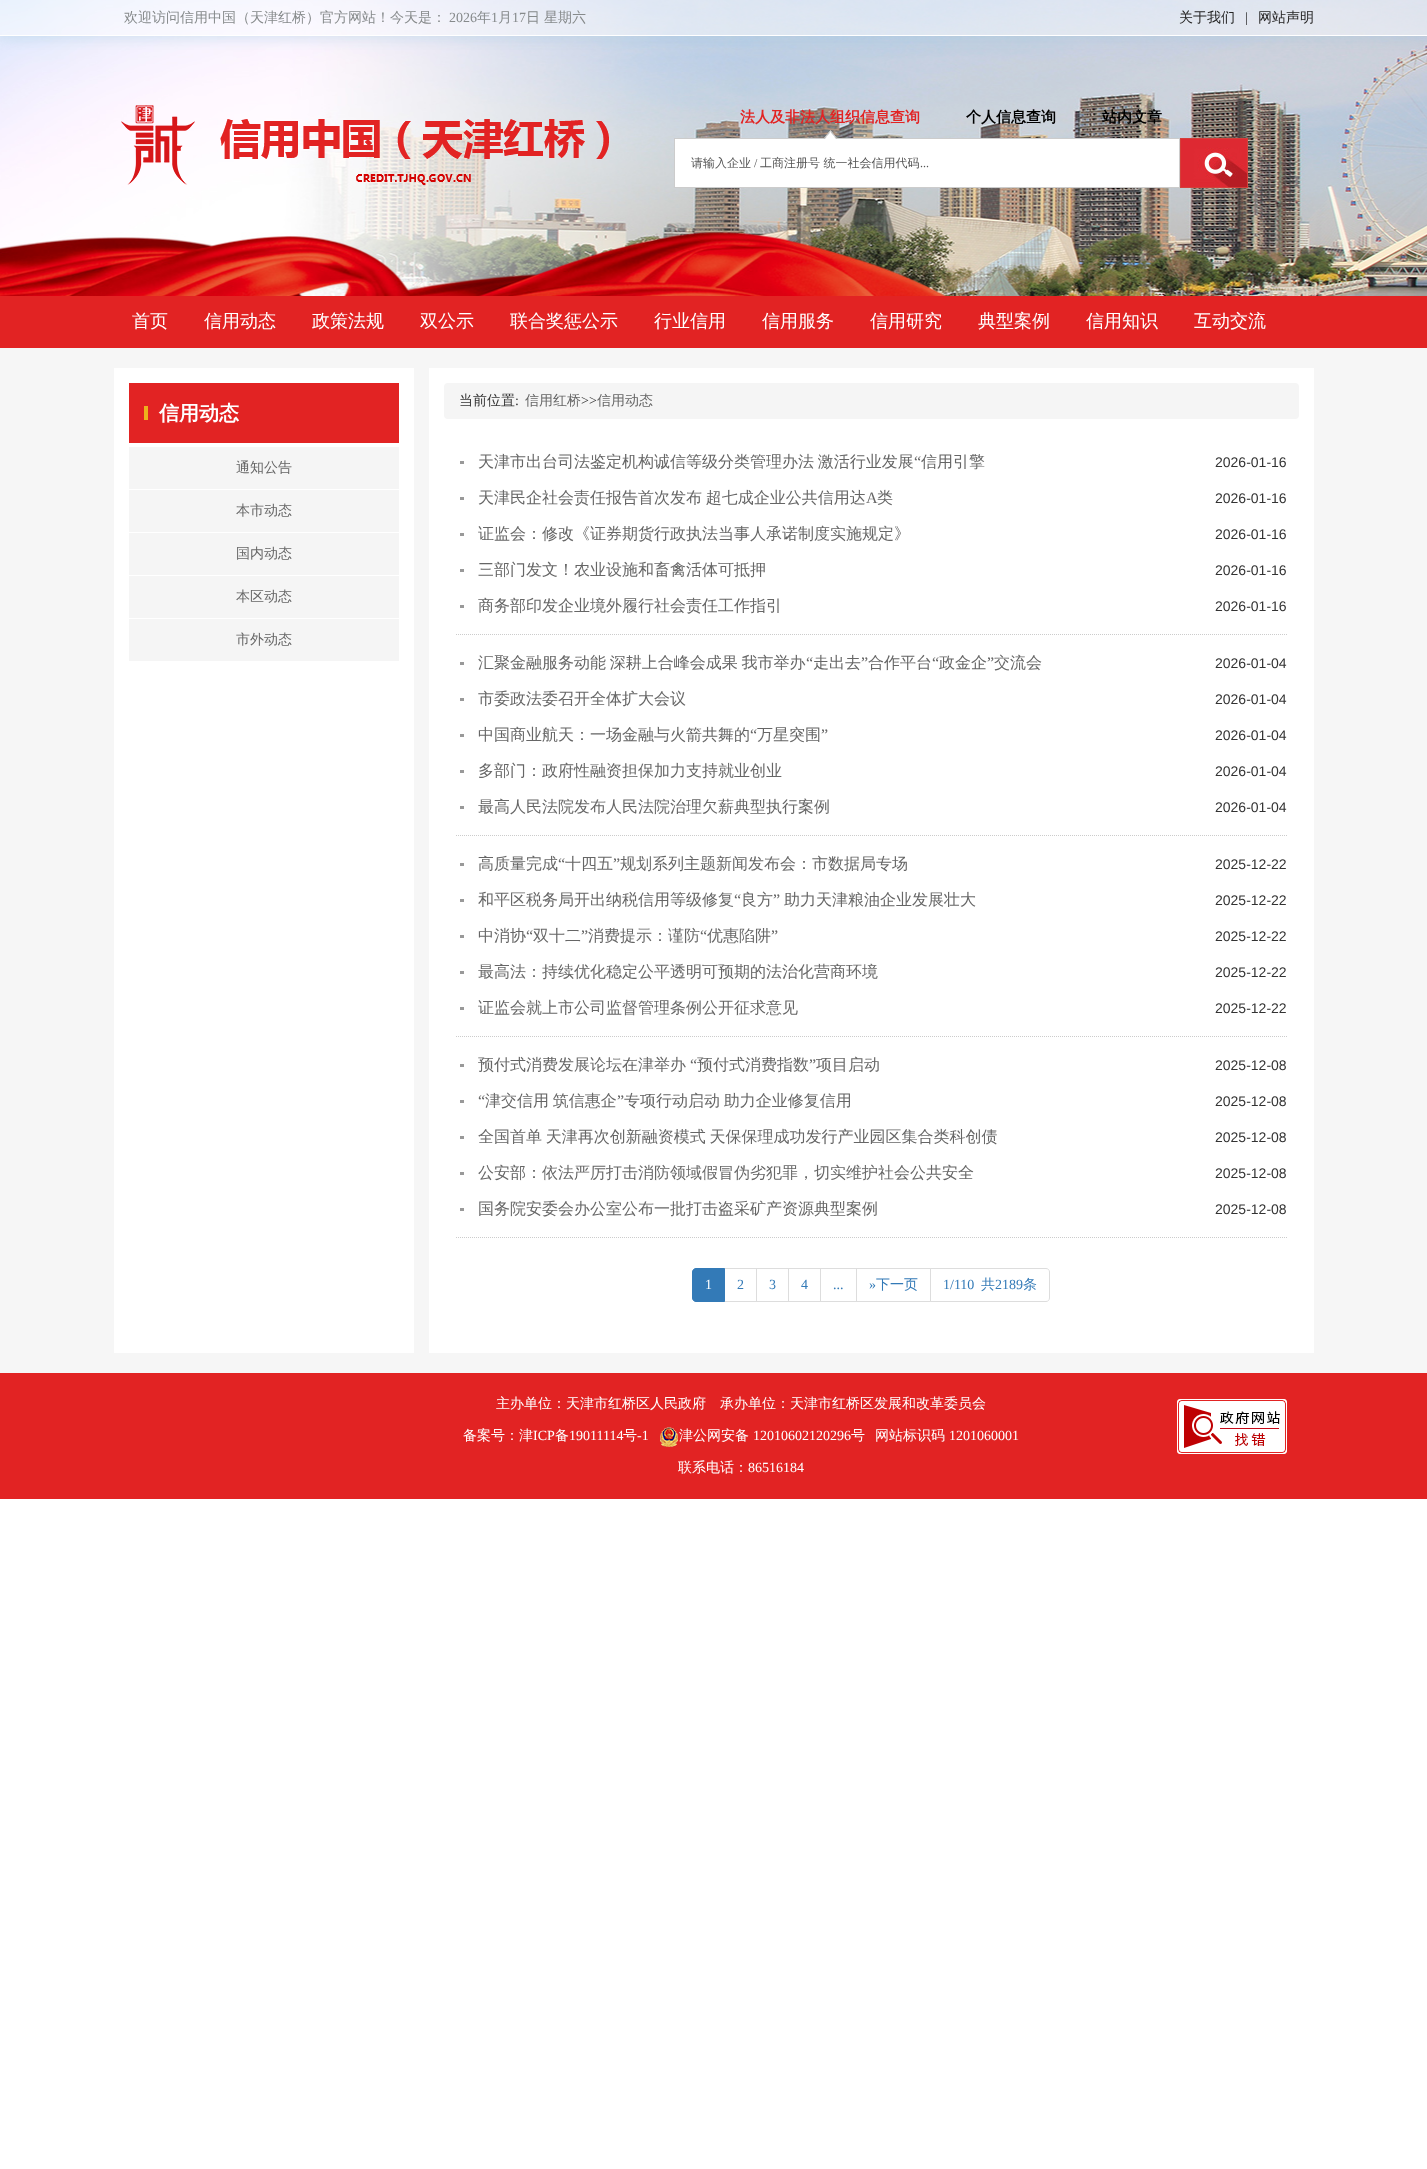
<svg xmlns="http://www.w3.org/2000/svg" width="1427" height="2169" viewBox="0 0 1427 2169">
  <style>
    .t1 { font: 500 14px WenQuanYi Zen Hei; fill: #868a8b; }
    .t2 { font: 14px Liberation Serif; fill: #868a8b; }
    .t3 { font: 500 14px WenQuanYi Zen Hei; fill: #252424; }
    .t4 { font: 14px Liberation Serif; fill: #252424; }
    .t5 { font: bold 15px WenQuanYi Zen Hei; fill: #e22323; }
    .t6 { font: bold 15px WenQuanYi Zen Hei; fill: #000; }
    .t7 { font: 500 12px WenQuanYi Zen Hei; fill: #555; }
    .t8 { font: 12px Liberation Serif; fill: #555; }
    .t9 { font: 500 18px WenQuanYi Zen Hei; fill: #fff; }
    .t10 { font: bold 20px WenQuanYi Zen Hei; fill: #fff; }
    .t11 { font: 500 14px WenQuanYi Zen Hei; fill: #666; }
    .t12 { font: 500 14px WenQuanYi Zen Hei; fill: #333; }
    .t13 { font: 14px Liberation Serif; fill: #333; }
    .t14 { font: 500 16px WenQuanYi Zen Hei; fill: #666; }
    .t15 { font: 16px Liberation Serif; fill: #666; }
    .t16 { font: 14px Liberation Sans; fill: #333; }
    .t17 { font: 14px Liberation Serif; fill: #fff; }
    .t18 { font: 14px Liberation Serif; fill: #337ab7; }
    .t19 { font: 500 14px WenQuanYi Zen Hei; fill: #337ab7; }
    .t20 { font: 500 14px WenQuanYi Zen Hei; fill: #fff; }
  </style>
  <defs>
    <clipPath id="clip1"><rect x="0" y="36" width="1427" height="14"/></clipPath>
  </defs>
  <rect width="100%" height="100%" fill="#fff"/>
  <rect x="0" y="348" width="1427" height="1025" fill="#f6f6f6"/>
  <image x="0" y="0" width="1427" height="296" href="images/1.png"/>
  <g clip-path="url(#clip1)">
    <rect x="0" y="0" width="1427" height="36" fill="#9fc9dd80" filter="blur(8px)"/>
  </g>
  <rect x="0" y="0" width="1427" height="35" fill="#ffffff80"/>
  <rect x="0" y="35" width="1427" height="1" fill="#fff"/>
  <text x="124" y="22" class="t1">欢迎访问信用中国（天津红桥）官方网站！今天是：</text>
  <text x="449" y="22" class="t2">2026</text>
  <text x="477" y="22" class="t1">年</text>
  <text x="491" y="22" class="t2">1</text>
  <text x="498" y="22" class="t1">月</text>
  <text x="512" y="22" class="t2">17</text>
  <text x="526" y="22" class="t1">日</text>
  <text x="544" y="22" class="t1">星期六</text>
  <text x="1179" y="22" class="t3">关于我们</text>
  <text x="1245" y="22" class="t4">|</text>
  <text x="1258" y="22" class="t3">网站声明</text>
  <image x="121" y="105" width="488" height="80" href="images/2.png"/>
  <rect x="674.5" y="138.5" width="505" height="49" fill="#fff" stroke="#ccc"/>
  <image x="824" y="130" width="13" height="9" href="images/3.png"/>
  <text x="740" y="122" class="t5">法人及非法人组织信息查询</text>
  <text x="966" y="122" class="t6">个人信息查询</text>
  <text x="1102" y="122" class="t6">站内文章</text>
  <text x="691" y="167" class="t7">请输入企业</text>
  <text x="754" y="167" class="t8">/</text>
  <text x="760" y="167" class="t7">工商注册号 统一社会信用代码</text>
  <text x="920" y="167" class="t8">...</text>
  <image x="1181" y="139" width="66" height="48" href="images/4.png"/>
  <rect x="1180.5" y="138.5" width="67" height="49" fill="none" stroke="#d43f3a"/>
  <rect x="0" y="296" width="1427" height="52" fill="#e22323"/>
  <text x="132" y="327" class="t9">首页</text>
  <text x="204" y="327" class="t9">信用动态</text>
  <text x="312" y="327" class="t9">政策法规</text>
  <text x="420" y="327" class="t9">双公示</text>
  <text x="510" y="327" class="t9">联合奖惩公示</text>
  <text x="654" y="327" class="t9">行业信用</text>
  <text x="762" y="327" class="t9">信用服务</text>
  <text x="870" y="327" class="t9">信用研究</text>
  <text x="978" y="327" class="t9">典型案例</text>
  <text x="1086" y="327" class="t9">信用知识</text>
  <text x="1194" y="327" class="t9">互动交流</text>
  <rect x="114" y="368" width="1200" height="985" fill="#fff"/>
  <rect x="129" y="383" width="270" height="60" fill="#e22323"/>
  <rect x="144" y="406" width="4" height="14" fill="#edb11d"/>
  <text x="159" y="420" class="t10">信用动态</text>
  <rect x="129" y="447" width="270" height="42" fill="#f5f5f5"/>
  <text x="236" y="472" class="t11">通知公告</text>
  <rect x="129" y="490" width="270" height="42" fill="#f5f5f5"/>
  <text x="236" y="515" class="t11">本市动态</text>
  <rect x="129" y="533" width="270" height="42" fill="#f5f5f5"/>
  <text x="236" y="558" class="t11">国内动态</text>
  <rect x="129" y="576" width="270" height="42" fill="#f5f5f5"/>
  <text x="236" y="601" class="t11">本区动态</text>
  <rect x="129" y="619" width="270" height="42" fill="#f5f5f5"/>
  <text x="236" y="644" class="t11">市外动态</text>
  <rect x="414" y="368" width="15" height="985" fill="#f6f6f6"/>
  <rect x="444" y="383" width="855" height="36" rx="4" fill="#f5f5f5"/>
  <text x="459" y="405" class="t12">当前位置</text>
  <text x="515" y="405" class="t13">:</text>
  <text x="525" y="405" class="t11">信用红桥</text>
  <text x="581" y="405" class="t13">&gt;&gt;</text>
  <text x="597" y="405" class="t11">信用动态</text>
  <rect x="460" y="461" width="4" height="3" fill="#999"/>
  <text x="478" y="467" word-spacing="-1" class="t14">天津市出台司法鉴定机构诚信等级分类管理办法 激活行业发展</text>
  <text x="914" y="467" class="t15">“</text>
  <text x="921" y="467" class="t14">信用引擎</text>
  <text x="1215" y="467" class="t16">2026-01-16</text>
  <rect x="460" y="497" width="4" height="3" fill="#999"/>
  <text x="478" y="503" word-spacing="-1" class="t14">天津民企社会责任报告首次发布 超七成企业公共信用达</text>
  <text x="866" y="503" class="t15">A</text>
  <text x="877" y="503" class="t14">类</text>
  <text x="1215" y="503" class="t16">2026-01-16</text>
  <rect x="460" y="533" width="4" height="3" fill="#999"/>
  <text x="478" y="539" class="t14">证监会：修改《证券期货行政执法当事人承诺制度实施规定》</text>
  <text x="1215" y="539" class="t16">2026-01-16</text>
  <rect x="460" y="569" width="4" height="3" fill="#999"/>
  <text x="478" y="575" class="t14">三部门发文！农业设施和畜禽活体可抵押</text>
  <text x="1215" y="575" class="t16">2026-01-16</text>
  <path d="M456 634.5H1287" fill="none" stroke="#ccc" stroke-dasharray="1 1"/>
  <rect x="460" y="605" width="4" height="3" fill="#999"/>
  <text x="478" y="611" class="t14">商务部印发企业境外履行社会责任工作指引</text>
  <text x="1215" y="611" class="t16">2026-01-16</text>
  <rect x="460" y="662" width="4" height="3" fill="#999"/>
  <text x="478" y="668" word-spacing="-1" class="t14">汇聚金融服务动能 深耕上合峰会成果 我市举办</text>
  <text x="806" y="668" class="t15">“</text>
  <text x="813" y="668" class="t14">走出去</text>
  <text x="861" y="668" class="t15">”</text>
  <text x="868" y="668" class="t14">合作平台</text>
  <text x="932" y="668" class="t15">“</text>
  <text x="939" y="668" class="t14">政金企</text>
  <text x="987" y="668" class="t15">”</text>
  <text x="994" y="668" class="t14">交流会</text>
  <text x="1215" y="668" class="t16">2026-01-04</text>
  <rect x="460" y="698" width="4" height="3" fill="#999"/>
  <text x="478" y="704" class="t14">市委政法委召开全体扩大会议</text>
  <text x="1215" y="704" class="t16">2026-01-04</text>
  <rect x="460" y="734" width="4" height="3" fill="#999"/>
  <text x="478" y="740" class="t14">中国商业航天：一场金融与火箭共舞的</text>
  <text x="750" y="740" class="t15">“</text>
  <text x="757" y="740" class="t14">万星突围</text>
  <text x="821" y="740" class="t15">”</text>
  <text x="1215" y="740" class="t16">2026-01-04</text>
  <rect x="460" y="770" width="4" height="3" fill="#999"/>
  <text x="478" y="776" class="t14">多部门：政府性融资担保加力支持就业创业</text>
  <text x="1215" y="776" class="t16">2026-01-04</text>
  <path d="M456 835.5H1287" fill="none" stroke="#ccc" stroke-dasharray="1 1"/>
  <rect x="460" y="806" width="4" height="3" fill="#999"/>
  <text x="478" y="812" class="t14">最高人民法院发布人民法院治理欠薪典型执行案例</text>
  <text x="1215" y="812" class="t16">2026-01-04</text>
  <rect x="460" y="863" width="4" height="3" fill="#999"/>
  <text x="478" y="869" class="t14">高质量完成</text>
  <text x="558" y="869" class="t15">“</text>
  <text x="565" y="869" class="t14">十四五</text>
  <text x="613" y="869" class="t15">”</text>
  <text x="620" y="869" class="t14">规划系列主题新闻发布会：市数据局专场</text>
  <text x="1215" y="869" class="t16">2025-12-22</text>
  <rect x="460" y="899" width="4" height="3" fill="#999"/>
  <text x="478" y="905" class="t14">和平区税务局开出纳税信用等级修复</text>
  <text x="734" y="905" class="t15">“</text>
  <text x="741" y="905" class="t14">良方</text>
  <text x="773" y="905" class="t15">”</text>
  <text x="784" y="905" class="t14">助力天津粮油企业发展壮大</text>
  <text x="1215" y="905" class="t16">2025-12-22</text>
  <rect x="460" y="935" width="4" height="3" fill="#999"/>
  <text x="478" y="941" class="t14">中消协</text>
  <text x="526" y="941" class="t15">“</text>
  <text x="533" y="941" class="t14">双十二</text>
  <text x="581" y="941" class="t15">”</text>
  <text x="588" y="941" class="t14">消费提示：谨防</text>
  <text x="700" y="941" class="t15">“</text>
  <text x="707" y="941" class="t14">优惠陷阱</text>
  <text x="771" y="941" class="t15">”</text>
  <text x="1215" y="941" class="t16">2025-12-22</text>
  <rect x="460" y="971" width="4" height="3" fill="#999"/>
  <text x="478" y="977" class="t14">最高法：持续优化稳定公平透明可预期的法治化营商环境</text>
  <text x="1215" y="977" class="t16">2025-12-22</text>
  <path d="M456 1036.5H1287" fill="none" stroke="#ccc" stroke-dasharray="1 1"/>
  <rect x="460" y="1007" width="4" height="3" fill="#999"/>
  <text x="478" y="1013" class="t14">证监会就上市公司监督管理条例公开征求意见</text>
  <text x="1215" y="1013" class="t16">2025-12-22</text>
  <rect x="460" y="1064" width="4" height="3" fill="#999"/>
  <text x="478" y="1070" class="t14">预付式消费发展论坛在津举办</text>
  <text x="690" y="1070" class="t15">“</text>
  <text x="697" y="1070" class="t14">预付式消费指数</text>
  <text x="809" y="1070" class="t15">”</text>
  <text x="816" y="1070" class="t14">项目启动</text>
  <text x="1215" y="1070" class="t16">2025-12-08</text>
  <rect x="460" y="1100" width="4" height="3" fill="#999"/>
  <text x="478" y="1106" class="t15">“</text>
  <text x="485" y="1106" word-spacing="-1" class="t14">津交信用 筑信惠企</text>
  <text x="617" y="1106" class="t15">”</text>
  <text x="624" y="1106" word-spacing="-1" class="t14">专项行动启动 助力企业修复信用</text>
  <text x="1215" y="1106" class="t16">2025-12-08</text>
  <rect x="460" y="1136" width="4" height="3" fill="#999"/>
  <text x="478" y="1142" word-spacing="-1" class="t14">全国首单 天津再次创新融资模式 天保保理成功发行产业园区集合类科创债</text>
  <text x="1215" y="1142" class="t16">2025-12-08</text>
  <rect x="460" y="1172" width="4" height="3" fill="#999"/>
  <text x="478" y="1178" class="t14">公安部：依法严厉打击消防领域假冒伪劣犯罪，切实维护社会公共安全</text>
  <text x="1215" y="1178" class="t16">2025-12-08</text>
  <path d="M456 1237.5H1287" fill="none" stroke="#ccc" stroke-dasharray="1 1"/>
  <rect x="460" y="1208" width="4" height="3" fill="#999"/>
  <text x="478" y="1214" class="t14">国务院安委会办公室公布一批打击盗采矿产资源典型案例</text>
  <text x="1215" y="1214" class="t16">2025-12-08</text>
  <rect x="724.5" y="1268.5" width="32" height="33" fill="none" stroke="#ddd"/>
  <path d="M696 1268.5H724.5V1301.5H696C694 1301.5 692.5 1300 692.5 1298V1272C692.5 1270 694 1268.5 696 1268.5Z" fill="#337ab7" stroke="#337ab7"/>
  <text x="705" y="1289" class="t17">1</text>
  <text x="737" y="1289" class="t18">2</text>
  <rect x="756.5" y="1268.5" width="32" height="33" fill="none" stroke="#ddd"/>
  <text x="769" y="1289" class="t18">3</text>
  <rect x="788.5" y="1268.5" width="32" height="33" fill="none" stroke="#ddd"/>
  <text x="801" y="1289" class="t18">4</text>
  <rect x="820.5" y="1268.5" width="36" height="33" fill="none" stroke="#ddd"/>
  <text x="833" y="1289" class="t18">...</text>
  <rect x="856.5" y="1268.5" width="74" height="33" fill="none" stroke="#ddd"/>
  <text x="869" y="1289" class="t18">»</text>
  <text x="876" y="1289" class="t19">下一页</text>
  <path d="M930.5 1268.5H1046C1048 1268.5 1049.5 1270 1049.5 1272V1298C1049.5 1300 1048 1301.5 1046 1301.5H930.5Z" fill="#fff" stroke="#ddd"/>
  <text x="943" y="1289" class="t18">1/110</text>
  <text x="981" y="1289" class="t19">共</text>
  <text x="995" y="1289" class="t18">2189</text>
  <text x="1023" y="1289" class="t19">条</text>
  <rect x="0" y="1373" width="1427" height="126" fill="#e22323"/>
  <text x="496" y="1408" class="t20">主办单位：天津市红桥区人民政府</text>
  <text x="720" y="1408" class="t20">承办单位：天津市红桥区发展和改革委员会</text>
  <image x="1177" y="1399" width="110" height="55" href="images/5.png"/>
  <text x="463" y="1440" class="t20">备案号：津</text>
  <text x="533" y="1440" class="t17">ICP</text>
  <text x="555" y="1440" class="t20">备</text>
  <text x="569" y="1440" class="t17">19011114</text>
  <text x="623" y="1440" class="t20">号</text>
  <text x="637" y="1440" class="t17">-1</text>
  <image x="660" y="1427" width="18" height="20" href="images/6.png"/>
  <text x="679" y="1440" class="t20">津公网安备</text>
  <text x="753" y="1440" class="t17">12010602120296</text>
  <text x="851" y="1440" class="t20">号</text>
  <text x="875" y="1440" class="t20">网站标识码</text>
  <text x="949" y="1440" class="t17">1201060001</text>
  <text x="678" y="1472" class="t20">联系电话：</text>
  <text x="748" y="1472" class="t17">86516184</text>
</svg>
